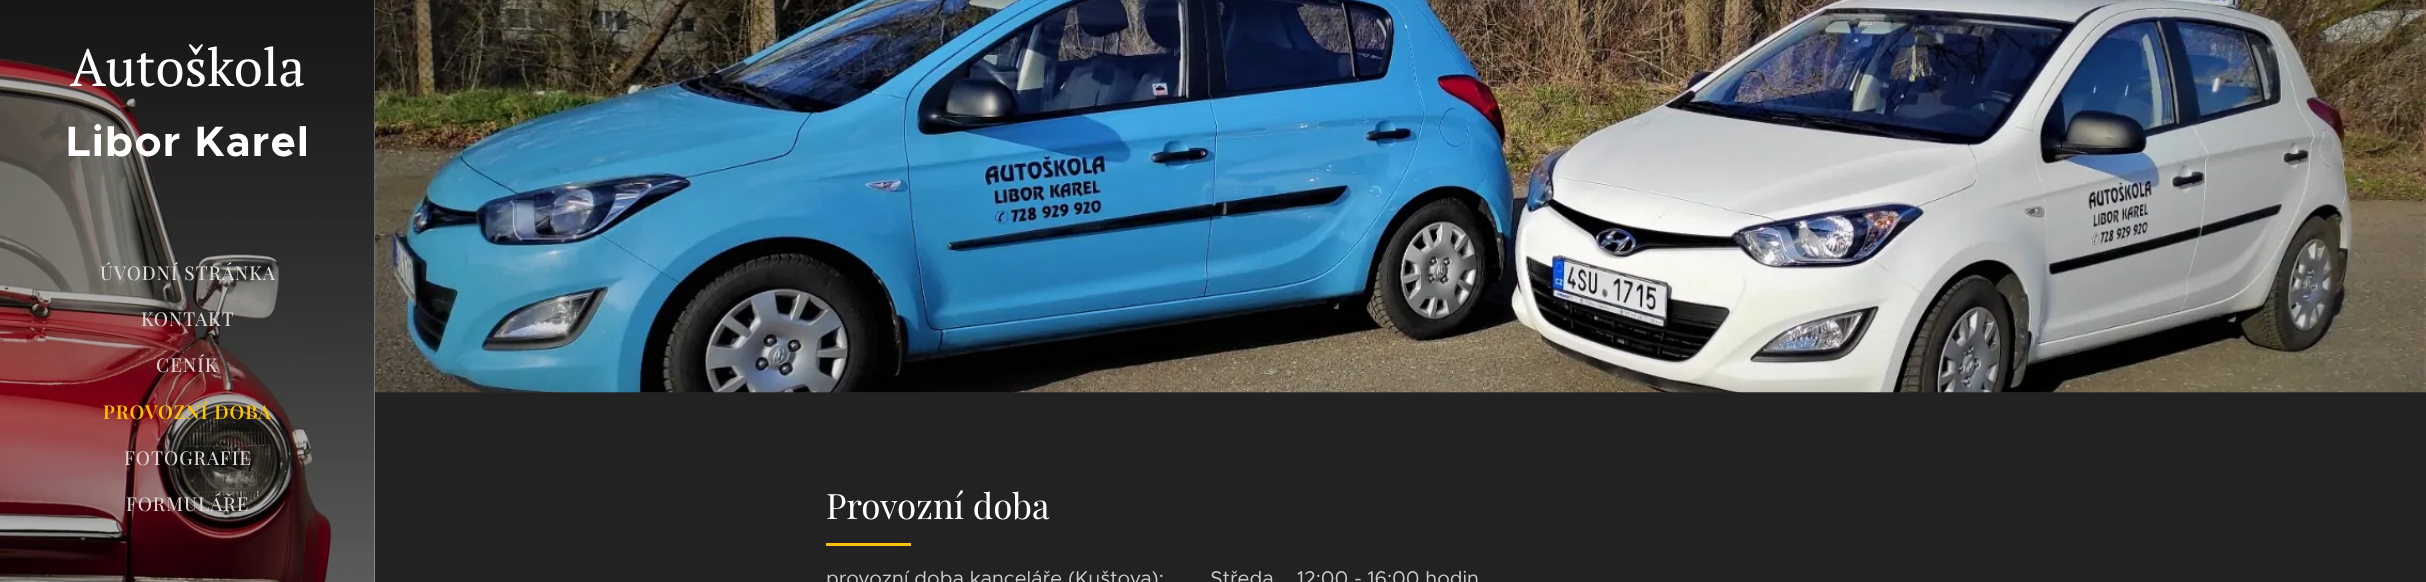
<svg xmlns="http://www.w3.org/2000/svg" width="2426" height="582" viewBox="0 0 2426 582">
  <style>
    .t1 { font: 52.5px PT Serif; fill: #fff; }
    .t2 { font: bold 42.75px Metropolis; letter-spacing: 1.25px; fill: #fff; }
    .t3 { font: 19px 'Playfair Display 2'; letter-spacing: 1px; fill: #dcdcdb; }
    .t4 { font: 19px 'Playfair Display 2'; letter-spacing: 1px; fill: #dbd6d6; }
    .t5 { font: 19px 'Playfair Display 2'; letter-spacing: 1px; fill: #e1d3d3; }
    .t6 { font: 600 19px Playfair Display; letter-spacing: 1px; fill: #ffc000; }
    .t7 { font: 35px Playfair Display; fill: #fff; }
    .t8 { font: 20px Metropolis; fill: #ccc; }
  </style>
  <rect width="100%" height="100%" fill="#272727"/>
  <image x="0" y="0" width="375" height="582" href="images/1.png"/>
  <text x="70" y="86" class="t1">Autoškola</text>
  <text x="66" y="156" class="t2">Libor Karel</text>
  <text x="100" y="280" class="t3">ÚVODNÍ STRÁNKA</text>
  <text x="141" y="326" class="t4">KONTAKT</text>
  <text x="156" y="372" class="t5">CENÍK</text>
  <text x="103" y="419" class="t6">PROVOZNÍ DOBA</text>
  <text x="124" y="465" class="t4">FOTOGRAFIE</text>
  <text x="126" y="511" class="t4">FORMULÁŘE</text>
  <rect x="374" y="0" width="1" height="582" fill="#ffffff4d"/>
  <image x="375" y="0" width="2051" height="393" href="images/2.png"/>
  <rect x="375" y="393" width="2051" height="189" fill="#222"/>
  <text x="826" y="519" class="t7">Provozní doba</text>
  <rect x="826" y="543" width="85" height="3" fill="#ffc000"/>
  <text x="826" y="585" class="t8" xml:space="preserve">provozní doba kanceláře (Kuštova):        Středa    12:00 - 16:00 hodin</text>
</svg>
